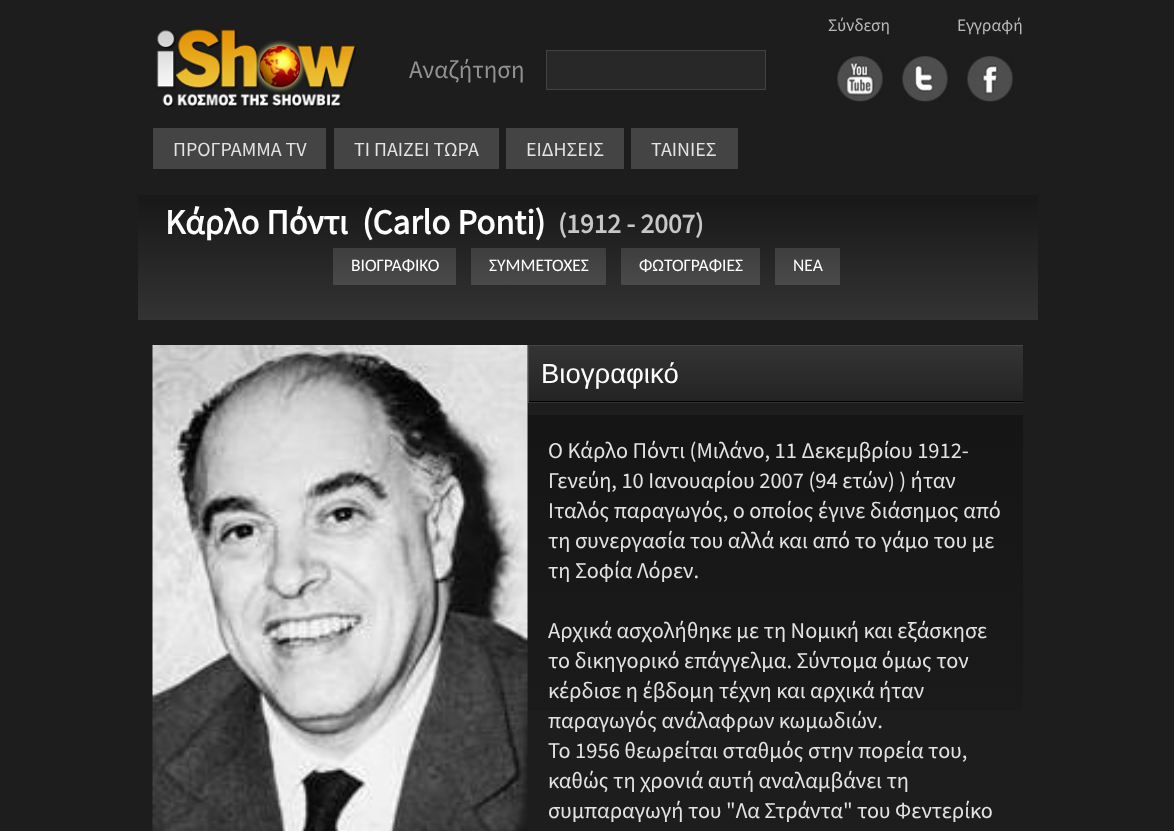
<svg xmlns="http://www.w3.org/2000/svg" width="1174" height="831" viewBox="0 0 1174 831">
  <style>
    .t1 { font: 17.5px Source Sans Pro; fill: #b9b9b9; }
    .t2 { font: 25px Source Sans Pro; fill: #929292; }
    .t3 { font: 20px Source Sans Pro; fill: #e3e3e3; }
    .t4 { font: bold 35px Source Sans Pro; fill: #fff; }
    .t5 { font: bold 27.5px Source Sans Pro; fill: #c7c7c7; }
    .t6 { font: 17.5px Carlito; fill: #fff; }
    .t7 { font: 27.5px Liberation Sans; fill: #fff; }
    .t8 { font: 22.5px Source Sans Pro; fill: #e3e3e3; }
  </style>
  <defs>
    <linearGradient id="g1" gradientUnits="userSpaceOnUse" x1="588" y1="195" x2="588" y2="320"><stop offset="0" stop-color="#181818"/><stop offset="1" stop-color="#333"/></linearGradient>
    <linearGradient id="g2" gradientUnits="userSpaceOnUse" x1="394" y1="248" x2="394" y2="285"><stop offset="0" stop-color="#3e3e3e"/><stop offset="1" stop-color="#4a4a4a"/></linearGradient>
    <linearGradient id="g3" gradientUnits="userSpaceOnUse" x1="539" y1="248" x2="539" y2="285"><stop offset="0" stop-color="#3e3e3e"/><stop offset="1" stop-color="#4a4a4a"/></linearGradient>
    <linearGradient id="g4" gradientUnits="userSpaceOnUse" x1="691" y1="248" x2="691" y2="285"><stop offset="0" stop-color="#3e3e3e"/><stop offset="1" stop-color="#4a4a4a"/></linearGradient>
    <linearGradient id="g5" gradientUnits="userSpaceOnUse" x1="808" y1="248" x2="808" y2="285"><stop offset="0" stop-color="#3e3e3e"/><stop offset="1" stop-color="#4a4a4a"/></linearGradient>
    <linearGradient id="g6" gradientUnits="userSpaceOnUse" x1="776" y1="346" x2="776" y2="401"><stop offset="0" stop-color="#343434"/><stop offset="1" stop-color="#242424"/></linearGradient>
    <linearGradient id="g7" gradientUnits="userSpaceOnUse" x1="776" y1="401" x2="776" y2="456"><stop offset="0" stop-color="#343434"/><stop offset="1" stop-color="#242424"/></linearGradient>
    <linearGradient id="g8" gradientUnits="userSpaceOnUse" x1="775" y1="415" x2="775" y2="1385"><stop offset="0" stop-color="#151515"/><stop offset="1" stop-color="#272727"/></linearGradient>
  </defs>
  <rect width="100%" height="100%" fill="#1d1d1d"/>
  <text x="828" y="31" class="t1">Σύνδεση</text>
  <text x="957" y="31" class="t1">Εγγραφή</text>
  <image x="837" y="56" width="46" height="46" href="images/1.png"/>
  <image x="902" y="56" width="46" height="46" href="images/2.png"/>
  <image x="967" y="56" width="46" height="46" href="images/3.png"/>
  <image x="156" y="29" width="201" height="78" href="images/4.png"/>
  <text x="409" y="78" class="t2">Αναζήτηση</text>
  <rect x="546.5" y="50.5" width="219" height="39" fill="#282828" stroke="#434343"/>
  <rect x="153" y="128" width="173" height="41" fill="#444"/>
  <text x="173" y="156" class="t3">ΠΡΟΓΡΑΜΜΑ TV</text>
  <rect x="334" y="128" width="165" height="41" fill="#444"/>
  <text x="354" y="156" class="t3">ΤΙ ΠΑΙΖΕΙ ΤΩΡΑ</text>
  <rect x="506" y="128" width="118" height="41" fill="#444"/>
  <text x="526" y="156" class="t3">ΕΙΔΗΣΕΙΣ</text>
  <rect x="631" y="128" width="107" height="41" fill="#444"/>
  <text x="651" y="156" class="t3">ΤΑΙΝΙΕΣ</text>
  <rect x="138" y="195" width="900" height="125" fill="url(#g1)"/>
  <text x="165" y="234" class="t4" xml:space="preserve">Κάρλο Πόντι  (Carlo Ponti)</text>
  <text x="558" y="233" class="t5">(1912 - 2007)</text>
  <rect x="333" y="248" width="123" height="37" fill="url(#g2)"/>
  <text x="351" y="271" class="t6">ΒΙΟΓΡΑΦΙΚΟ</text>
  <rect x="471" y="248" width="135" height="37" fill="url(#g3)"/>
  <text x="489" y="271" class="t6">ΣΥΜΜΕΤΟΧΕΣ</text>
  <rect x="621" y="248" width="139" height="37" fill="url(#g4)"/>
  <text x="639" y="271" class="t6">ΦΩΤΟΓΡΑΦΙΕΣ</text>
  <rect x="775" y="248" width="65" height="37" fill="url(#g5)"/>
  <text x="793" y="271" class="t6">ΝΕΑ</text>
  <image x="152" y="345" width="376" height="486" href="images/5.png"/>
  <rect x="529" y="346" width="494" height="55" fill="url(#g6)"/>
  <rect x="528" y="402" width="495" height="1" fill="url(#g7)"/>
  <rect x="528" y="345" width="495" height="1" fill="#444"/>
  <rect x="528" y="401" width="495" height="1" fill="#000"/>
  <rect x="528" y="345" width="1" height="58" fill="#444"/>
  <text x="541" y="383" class="t7">Βιογραφικό</text>
  <rect x="528" y="415" width="495" height="296" fill="url(#g8)"/>
  <text x="548" y="458" class="t8">Ο Κάρλο Πόντι (Μιλάνο, 11 Δεκεμβρίου 1912-</text>
  <text x="548" y="488" class="t8">Γενεύη, 10 Ιανουαρίου 2007 (94 ετών) ) ήταν</text>
  <text x="548" y="518" class="t8">Ιταλός παραγωγός, ο οποίος έγινε διάσημος από</text>
  <text x="548" y="548" class="t8">τη συνεργασία του αλλά και από το γάμο του με</text>
  <text x="548" y="578" class="t8">τη Σοφία Λόρεν.</text>
  <text x="548" y="638" class="t8">Αρχικά ασχολήθηκε με τη Νομική και εξάσκησε</text>
  <text x="548" y="668" class="t8">το δικηγορικό επάγγελμα. Σύντομα όμως τον</text>
  <text x="548" y="698" class="t8">κέρδισε η έβδομη τέχνη και αρχικά ήταν</text>
  <text x="548" y="728" class="t8">παραγωγός ανάλαφρων κωμωδιών.</text>
  <text x="548" y="758" class="t8">Το 1956 θεωρείται σταθμός στην πορεία του,</text>
  <text x="548" y="788" class="t8">καθώς τη χρονιά αυτή αναλαμβάνει τη</text>
  <text x="548" y="818" class="t8">συμπαραγωγή του "Λα Στράντα" του Φεντερίκο</text>
</svg>
